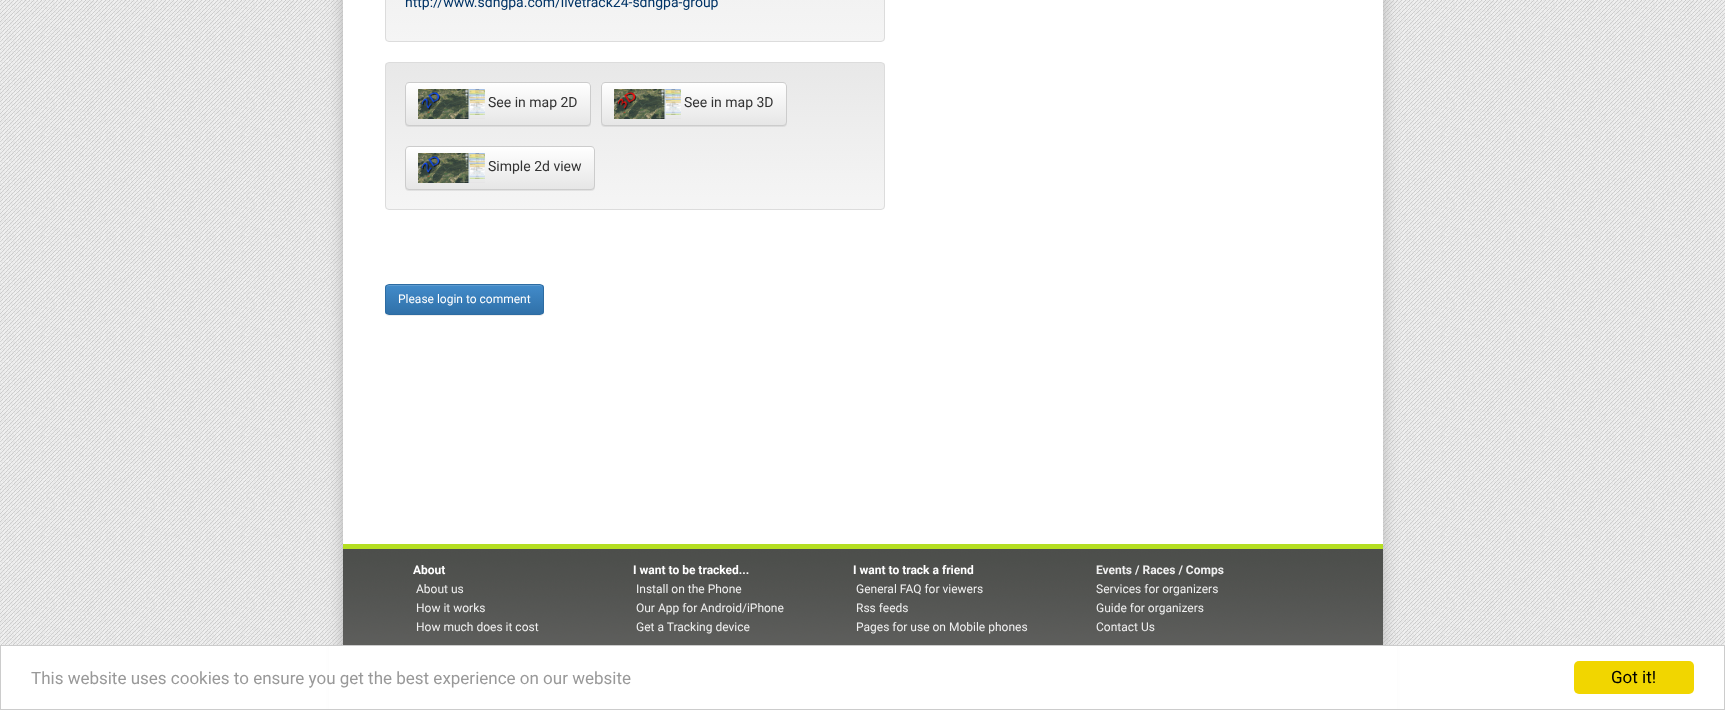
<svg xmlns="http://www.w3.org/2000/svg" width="1725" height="710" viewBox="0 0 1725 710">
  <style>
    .t1 { font: 14px Roboto; fill: #036; }
    .t2 { font: 14px Roboto; fill: #333; }
    .t3 { font: 12px Roboto; fill: #fff; }
    .t4 { font: bold 12px Roboto; fill: #fff; }
    .t5 { font: 12px Roboto; fill: #f0f0f0; }
    .t6 { font: bold 12px Roboto; fill: #f0f0f0; }
    .t7 { font: 17px Roboto; fill: #999; }
    .t8 { font: 17px Roboto; fill: #000; }
  </style>
  <defs>
    <clipPath id="clip1"><rect x="385" y="-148" width="500" height="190" rx="4"/></clipPath>
    <linearGradient id="g1" gradientUnits="userSpaceOnUse" x1="635" y1="-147" x2="635" y2="41"><stop offset="0" stop-color="#e8e8e8"/><stop offset="1" stop-color="#f5f5f5"/></linearGradient>
    <clipPath id="clip2"><rect x="385" y="62" width="500" height="148" rx="4"/></clipPath>
    <linearGradient id="g2" gradientUnits="userSpaceOnUse" x1="635" y1="63" x2="635" y2="209"><stop offset="0" stop-color="#e8e8e8"/><stop offset="1" stop-color="#f5f5f5"/></linearGradient>
    <clipPath id="clip3"><rect x="405" y="82" width="186" height="44" rx="4"/></clipPath>
    <linearGradient id="g3" gradientUnits="userSpaceOnUse" x1="498" y1="83" x2="498" y2="125"><stop offset="0" stop-color="#fff"/><stop offset="1" stop-color="#e6e6e6"/></linearGradient>
    <clipPath id="clip4"><rect x="601" y="82" width="186" height="44" rx="4"/></clipPath>
    <linearGradient id="g4" gradientUnits="userSpaceOnUse" x1="694" y1="83" x2="694" y2="125"><stop offset="0" stop-color="#fff"/><stop offset="1" stop-color="#e6e6e6"/></linearGradient>
    <clipPath id="clip5"><rect x="405" y="146" width="190" height="44" rx="4"/></clipPath>
    <linearGradient id="g5" gradientUnits="userSpaceOnUse" x1="500" y1="147" x2="500" y2="189"><stop offset="0" stop-color="#fff"/><stop offset="1" stop-color="#e6e6e6"/></linearGradient>
    <clipPath id="clip6"><rect x="385" y="284" width="159" height="31" rx="4"/></clipPath>
    <linearGradient id="g6" gradientUnits="userSpaceOnUse" x1="465" y1="285" x2="465" y2="314"><stop offset="0" stop-color="#428bca"/><stop offset="1" stop-color="#3071a9"/></linearGradient>
  </defs>
  <rect width="100%" height="100%" fill="#fff"/>
  <image x="0" y="0" width="1725" height="645" href="images/1.png"/>
  <rect x="343" y="-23" width="1040" height="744" fill="#b4b4b4" filter="blur(7.5px)"/>
  <rect x="343" y="0" width="1040" height="544" fill="#fff"/>
  <g clip-path="url(#clip1)">
    <rect x="385" y="0" width="500" height="41" fill="url(#g1)"/>
  </g>
  <rect x="385.5" y="-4.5" width="499" height="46" rx="3.5" fill="none" stroke="#dcdcdc"/>
  <text x="405" y="7" class="t1">http://www.sdhgpa.com/livetrack24-sdhgpa-group</text>
  <g clip-path="url(#clip2)">
    <rect x="385" y="63" width="500" height="146" fill="url(#g2)"/>
  </g>
  <rect x="385.5" y="62.5" width="499" height="147" rx="3.5" fill="none" stroke="#dcdcdc"/>
  <rect x="405" y="83" width="186" height="44" rx="4" fill="#00000012" filter="blur(0.5px)"/>
  <g clip-path="url(#clip3)">
    <rect x="405" y="83" width="186" height="42" fill="url(#g3)"/>
  </g>
  <rect x="405.5" y="82.5" width="185" height="43" rx="3.5" fill="none" stroke="#ccc"/>
  <image x="418" y="89" width="67" height="30" href="images/2.png"/>
  <text x="488" y="107" class="t2">See in map 2D</text>
  <rect x="601" y="83" width="186" height="44" rx="4" fill="#00000012" filter="blur(0.5px)"/>
  <g clip-path="url(#clip4)">
    <rect x="601" y="83" width="186" height="42" fill="url(#g4)"/>
  </g>
  <rect x="601.5" y="82.5" width="185" height="43" rx="3.5" fill="none" stroke="#ccc"/>
  <image x="614" y="89" width="67" height="30" href="images/3.png"/>
  <text x="684" y="107" class="t2">See in map 3D</text>
  <rect x="405" y="147" width="190" height="44" rx="4" fill="#00000012" filter="blur(0.5px)"/>
  <g clip-path="url(#clip5)">
    <rect x="405" y="147" width="190" height="42" fill="url(#g5)"/>
  </g>
  <rect x="405.5" y="146.5" width="189" height="43" rx="3.5" fill="none" stroke="#ccc"/>
  <image x="418" y="153" width="67" height="30" href="images/2.png"/>
  <text x="488" y="171" class="t2">Simple 2d view</text>
  <rect x="385" y="285" width="159" height="31" rx="4" fill="#00000012" filter="blur(0.5px)"/>
  <g clip-path="url(#clip6)">
    <rect x="385" y="285" width="159" height="29" fill="url(#g6)"/>
  </g>
  <path d="M389 286H540C542 286 543 287 543 289C543 287 542 285 540 285H388C386 285 386 287 386 289C386 287 387 286 389 286Z" fill="#5e9cd1"/>
  <rect x="385.5" y="284.5" width="158" height="30" rx="3.5" fill="none" stroke="#2d6ca2"/>
  <text x="398" y="303" class="t3">Please login to comment</text>
  <rect x="343" y="544" width="1040" height="5" fill="#b5df21"/>
  <image x="343" y="549" width="1040" height="96" href="images/4.png"/>
  <text x="413" y="574" class="t4">About</text>
  <text x="416" y="593" class="t5">About us</text>
  <text x="416" y="612" class="t5">How it works</text>
  <text x="416" y="631" class="t5">How much does it cost</text>
  <text x="633" y="574" class="t4">I want to be tracked...</text>
  <text x="636" y="593" class="t5">Install on the Phone</text>
  <text x="636" y="612" class="t5">Our App for Android/iPhone</text>
  <text x="636" y="631" class="t5">Get a Tracking device</text>
  <text x="853" y="574" class="t4">I want to track a friend</text>
  <text x="856" y="593" class="t5">General FAQ for viewers</text>
  <text x="856" y="612" class="t5">Rss feeds</text>
  <text x="856" y="631" class="t5">Pages for use on Mobile phones</text>
  <text x="1096" y="574" class="t6">Events / Races / Comps</text>
  <text x="1096" y="593" class="t5">Services for organizers</text>
  <text x="1096" y="612" class="t5">Guide for organizers</text>
  <text x="1096" y="631" class="t5">Contact Us</text>
  <rect x="329" y="646" width="1068" height="63" fill="#fff"/>
  <rect x="0.5" y="645.5" width="1724" height="64" fill="none" stroke="#ccc"/>
  <text x="31" y="684" class="t7">This website uses cookies to ensure you get the best experience on our website</text>
  <rect x="1574" y="661" width="120" height="33" rx="5" fill="#f1d600"/>
  <text x="1611" y="683" class="t8">Got it!</text>
</svg>
